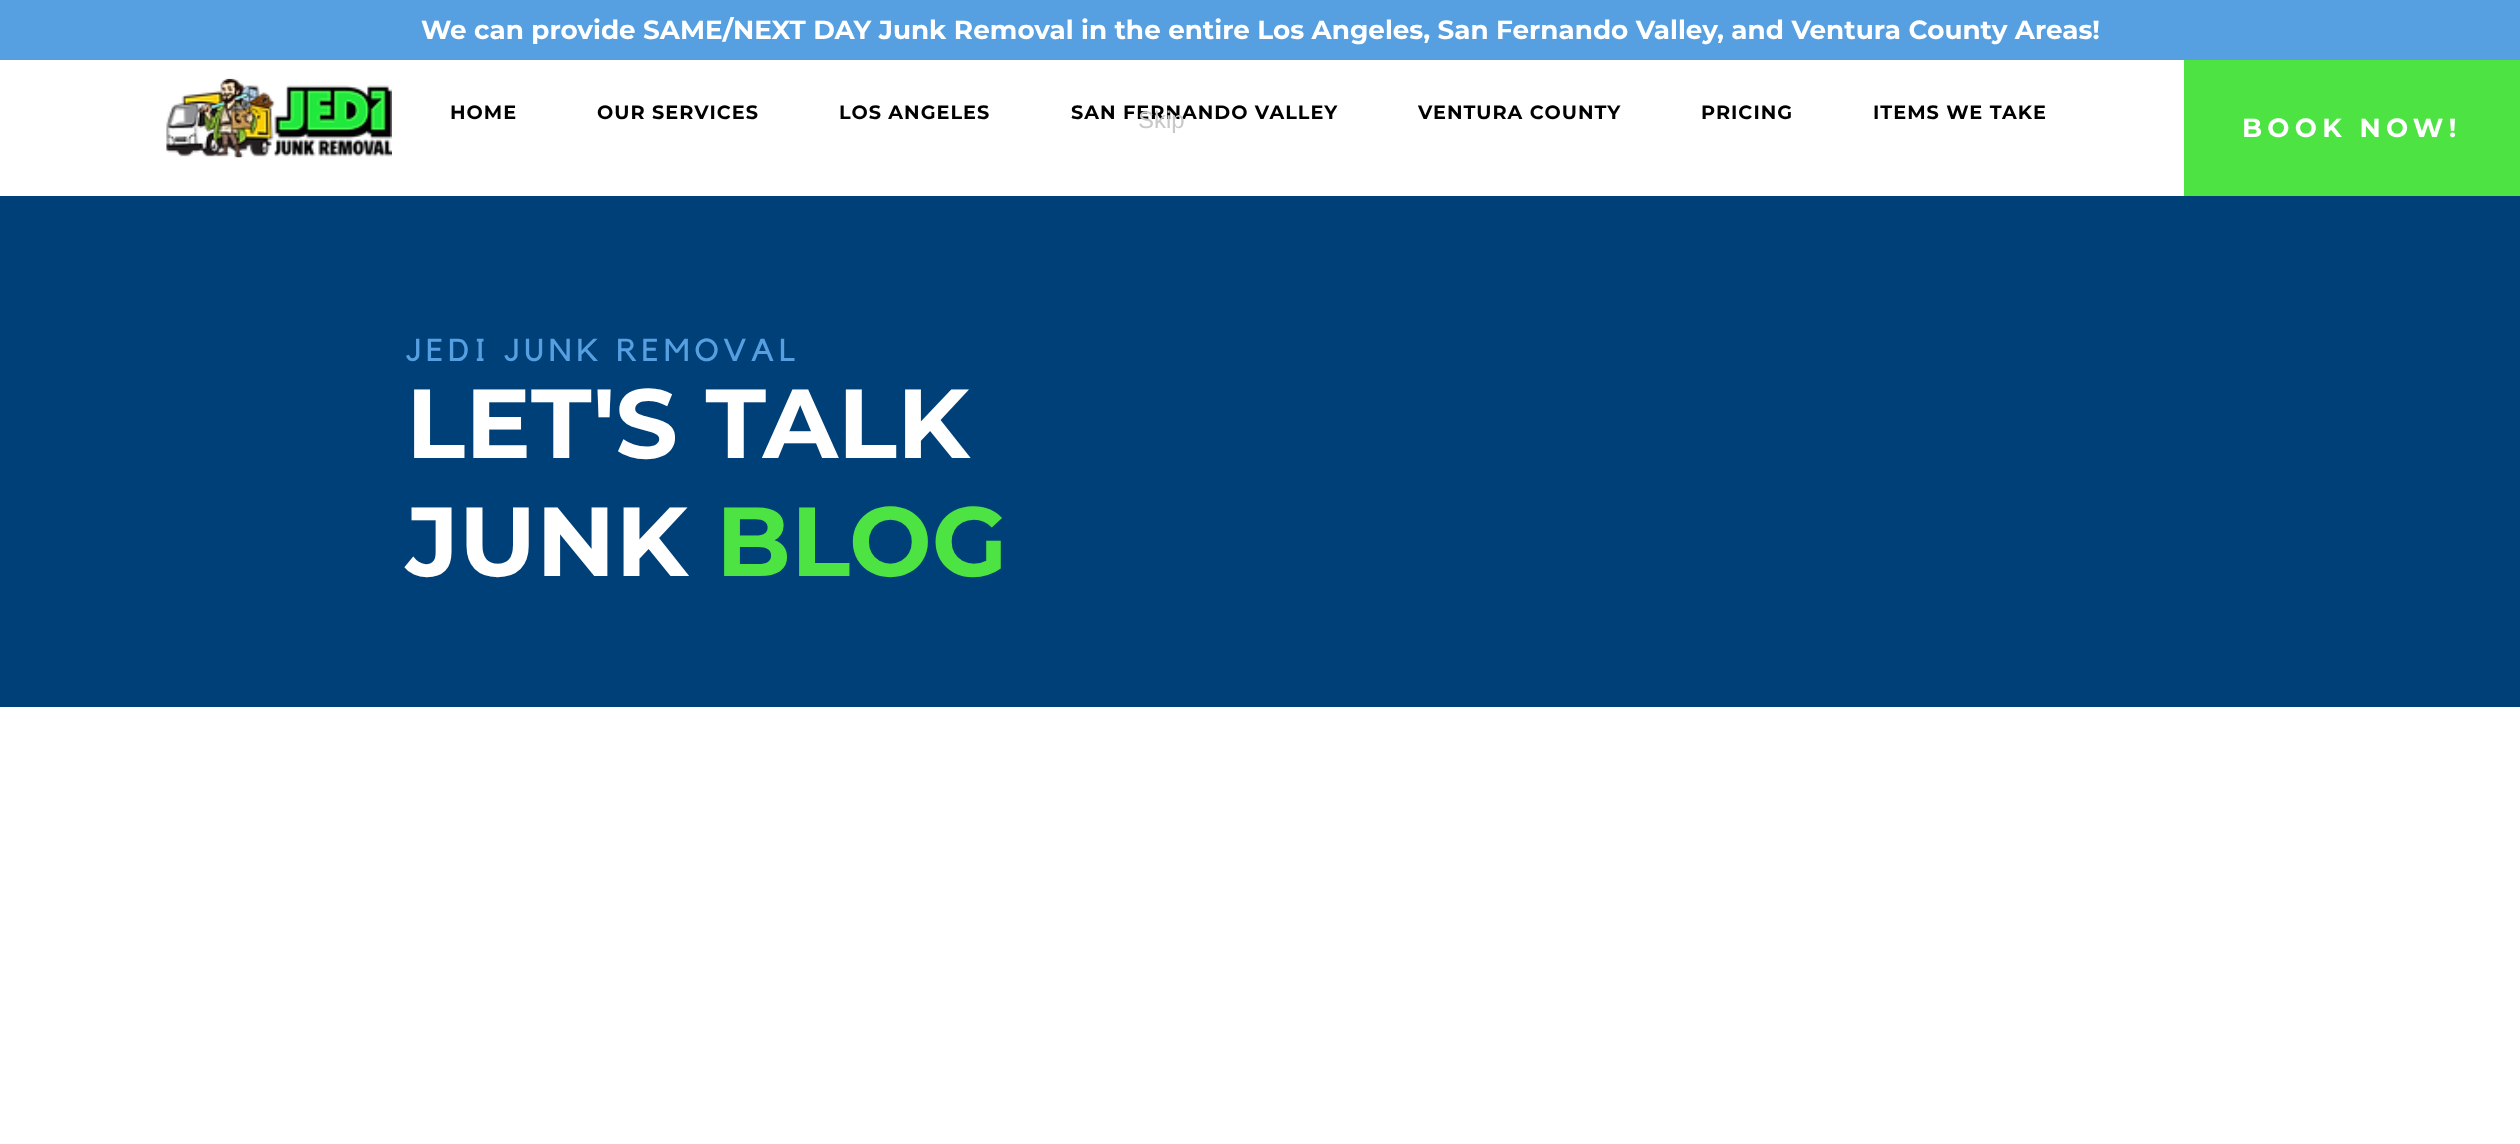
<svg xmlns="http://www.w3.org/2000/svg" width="2520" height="1144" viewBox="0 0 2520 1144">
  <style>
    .t1 { font: bold 26.25px Montserrat; fill: #fff; }
    .t2 { font: bold 19.25px Montserrat; letter-spacing: 1px; fill: #000; }
    .t3 { font: bold 26.25px Montserrat; letter-spacing: 5.25px; fill: #fff; }
    .t4 { font: 31.5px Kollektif; letter-spacing: 4.75px; fill: #569fe0; }
    .t5 { font: bold 98px Montserrat; fill: #fff; }
    .t6 { font: bold 98px Montserrat; fill: #4de443; }
    .t7 { font: 24px Liberation Sans; fill: #c8c8c8; }
  </style>
  <rect width="100%" height="100%" fill="#fff"/>
  <rect x="0" y="0" width="2520" height="60" fill="#569fe0"/>
  <text x="421" y="39" class="t1">We can provide SAME/NEXT DAY Junk Removal in the entire Los Angeles, San Fernando Valley, and Ventura County Areas!</text>
  <image x="166" y="78" width="226" height="80" href="images/1.png"/>
  <text x="450" y="119" class="t2">HOME</text>
  <text x="597" y="119" class="t2">OUR SERVICES</text>
  <text x="839" y="119" class="t2">LOS ANGELES</text>
  <text x="1071" y="119" class="t2">SAN FERNANDO VALLEY</text>
  <text x="1418" y="119" class="t2">VENTURA COUNTY</text>
  <text x="1701" y="119" class="t2">PRICING</text>
  <text x="1873" y="119" class="t2">ITEMS WE TAKE</text>
  <rect x="2184" y="60" width="336" height="136" fill="#4de443"/>
  <text x="2242" y="137" class="t3">BOOK NOW!</text>
  <rect x="0" y="196" width="2520" height="511" fill="#004078"/>
  <text x="406" y="361" class="t4">JEDI JUNK REMOVAL</text>
  <text x="406" y="458" class="t5">LET'S TALK</text>
  <text x="406" y="576" class="t5">JUNK</text>
  <text x="716" y="576" class="t6">BLOG</text>
  <text x="1138" y="128" class="t7">Skip</text>
</svg>
